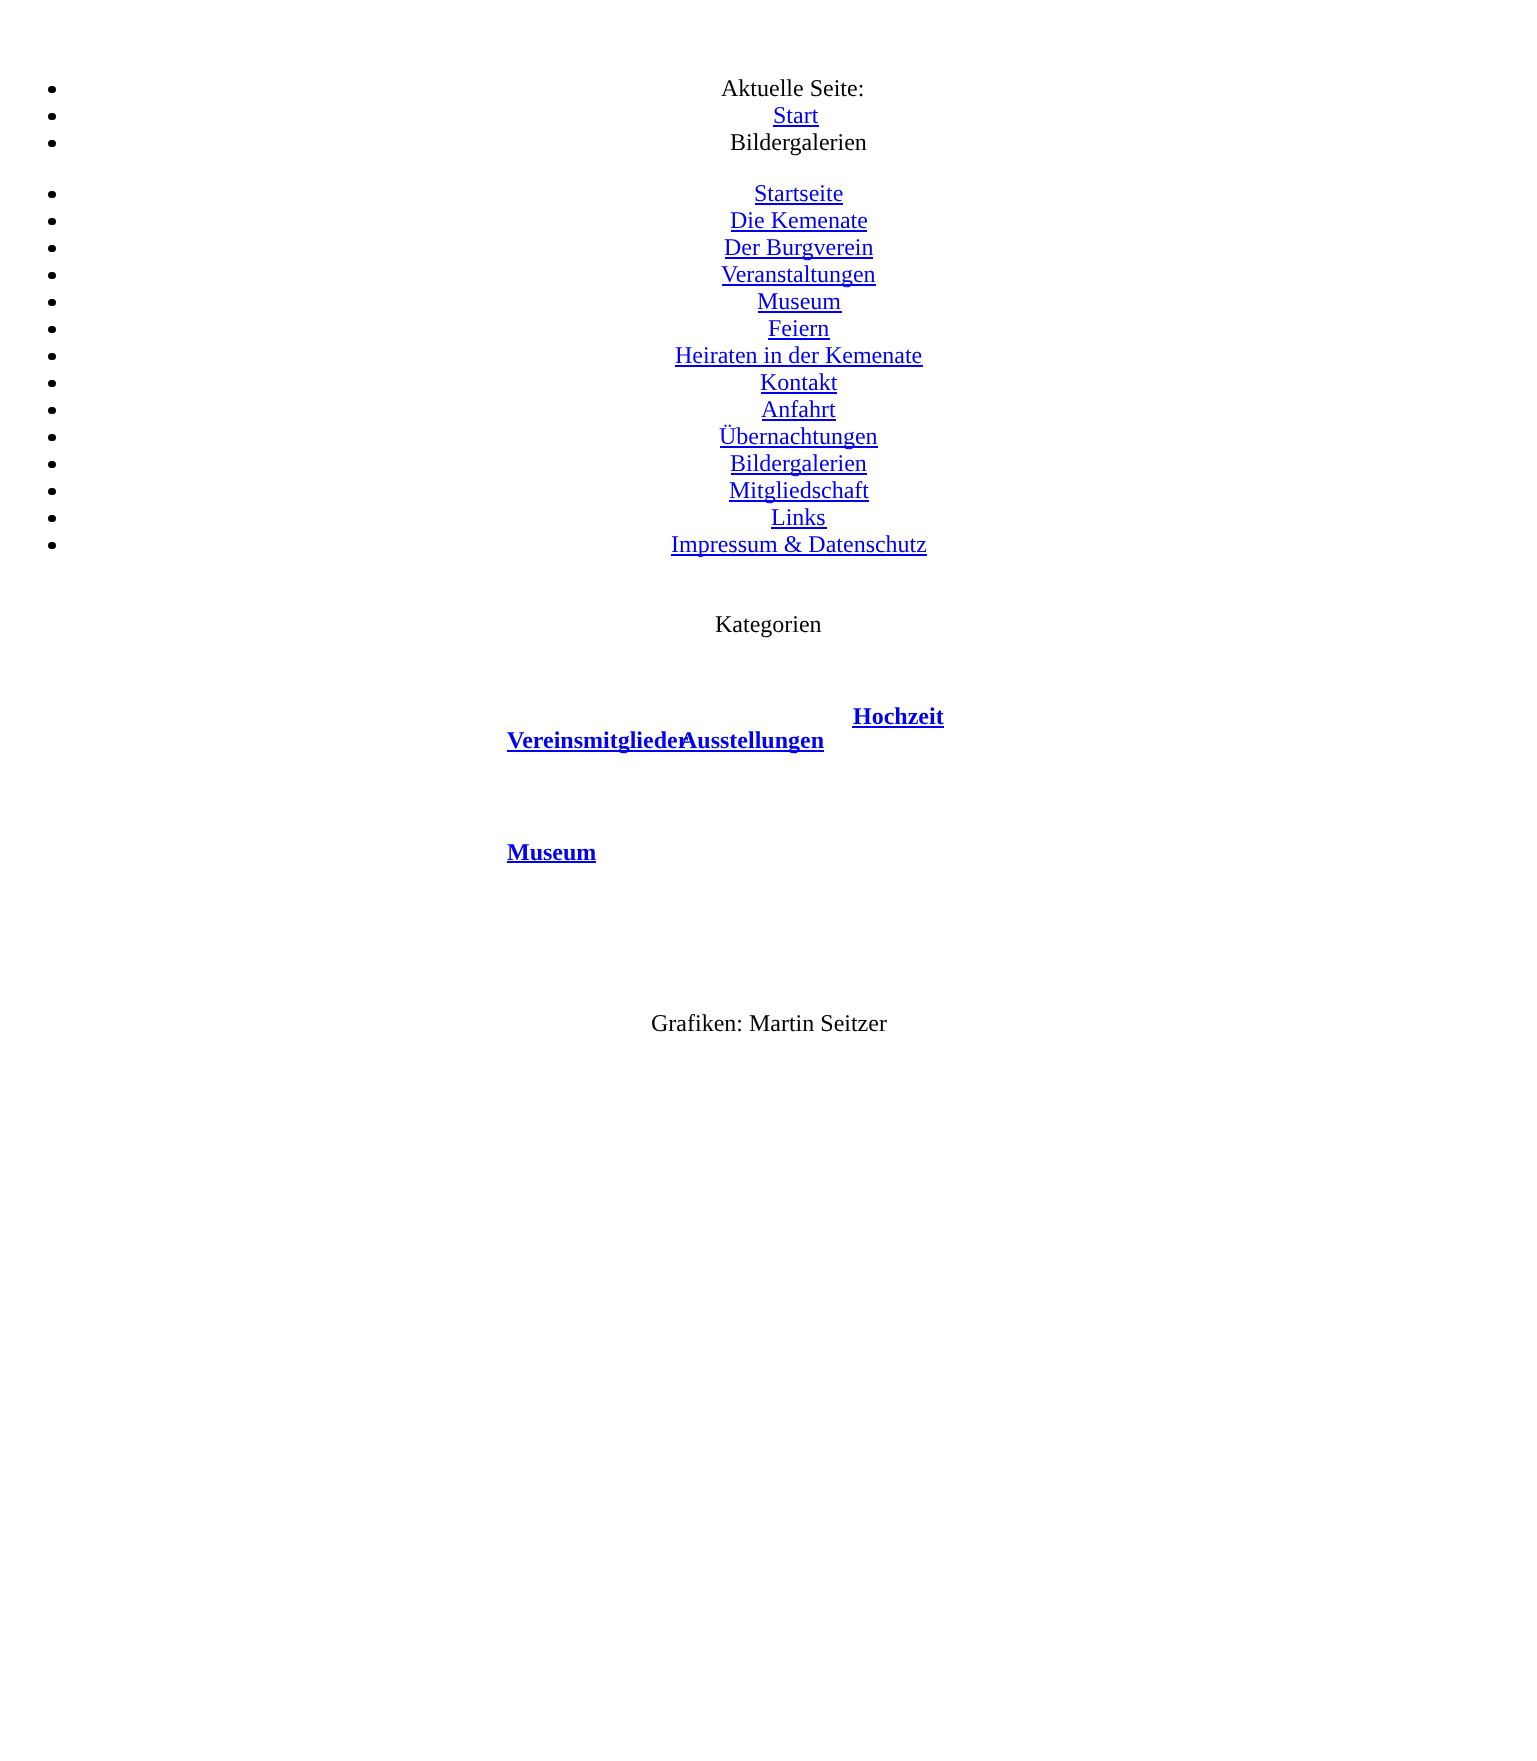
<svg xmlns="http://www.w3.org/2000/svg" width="1537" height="1761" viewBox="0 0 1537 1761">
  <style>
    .t1 { font: 24px Liberation Serif; fill: #000; }
    .t2 { font: 24px Liberation Serif; fill: #00e; }
    .t3 { font: bold 24px Liberation Serif; fill: #00e; }
  </style>
  <rect width="100%" height="100%" fill="#fff"/>
  <rect x="48" y="86" width="8" height="7" rx="3.5" fill="#000"/>
  <text x="721" y="96" class="t1">Aktuelle Seite:</text>
  <rect x="48" y="113" width="8" height="7" rx="3.5" fill="#000"/>
  <text x="773" y="123" class="t2">Start</text>
  <rect x="773" y="125" width="46" height="2" fill="#00e"/>
  <rect x="48" y="140" width="8" height="7" rx="3.5" fill="#000"/>
  <text x="730" y="150" class="t1">Bildergalerien</text>
  <rect x="48" y="191" width="8" height="7" rx="3.5" fill="#000"/>
  <text x="754" y="201" class="t2">Startseite</text>
  <rect x="755" y="203" width="88" height="2" fill="#00e"/>
  <rect x="48" y="218" width="8" height="7" rx="3.5" fill="#000"/>
  <text x="730" y="228" class="t2">Die Kemenate</text>
  <rect x="731" y="230" width="136" height="2" fill="#00e"/>
  <rect x="48" y="245" width="8" height="7" rx="3.5" fill="#000"/>
  <rect x="725" y="257" width="148" height="2" fill="#00e"/>
  <text x="724" y="255" class="t2">Der Burgverein</text>
  <rect x="48" y="272" width="8" height="7" rx="3.5" fill="#000"/>
  <rect x="722" y="284" width="154" height="2" fill="#00e"/>
  <text x="721" y="282" class="t2">Veranstaltungen</text>
  <rect x="48" y="299" width="8" height="7" rx="3.5" fill="#000"/>
  <text x="757" y="309" class="t2">Museum</text>
  <rect x="758" y="311" width="84" height="2" fill="#00e"/>
  <rect x="48" y="326" width="8" height="7" rx="3.5" fill="#000"/>
  <text x="768" y="336" class="t2">Feiern</text>
  <rect x="768" y="338" width="62" height="2" fill="#00e"/>
  <rect x="48" y="353" width="8" height="7" rx="3.5" fill="#000"/>
  <text x="675" y="363" class="t2">Heiraten in der Kemenate</text>
  <rect x="675" y="365" width="248" height="2" fill="#00e"/>
  <rect x="48" y="380" width="8" height="7" rx="3.5" fill="#000"/>
  <text x="760" y="390" class="t2">Kontakt</text>
  <rect x="761" y="392" width="76" height="2" fill="#00e"/>
  <rect x="48" y="407" width="8" height="7" rx="3.5" fill="#000"/>
  <text x="761" y="417" class="t2">Anfahrt</text>
  <rect x="762" y="419" width="74" height="2" fill="#00e"/>
  <rect x="48" y="434" width="8" height="7" rx="3.5" fill="#000"/>
  <rect x="720" y="446" width="158" height="2" fill="#00e"/>
  <text x="719" y="444" class="t2">Übernachtungen</text>
  <rect x="48" y="461" width="8" height="7" rx="3.5" fill="#000"/>
  <rect x="731" y="473" width="136" height="2" fill="#00e"/>
  <text x="730" y="471" class="t2">Bildergalerien</text>
  <rect x="48" y="488" width="8" height="7" rx="3.5" fill="#000"/>
  <rect x="729" y="500" width="140" height="2" fill="#00e"/>
  <text x="729" y="498" class="t2">Mitgliedschaft</text>
  <rect x="48" y="515" width="8" height="7" rx="3.5" fill="#000"/>
  <text x="771" y="525" class="t2">Links</text>
  <rect x="771" y="527" width="56" height="2" fill="#00e"/>
  <rect x="48" y="542" width="8" height="7" rx="3.5" fill="#000"/>
  <rect x="671" y="554" width="256" height="2" fill="#00e"/>
  <text x="671" y="552" class="t2">Impressum &amp; Datenschutz</text>
  <text x="715" y="632" class="t1">Kategorien</text>
  <text x="853" y="724" class="t3">Hochzeit</text>
  <rect x="852" y="726" width="92" height="2" fill="#00e"/>
  <rect x="507" y="750" width="173" height="2" fill="#00e"/>
  <text x="507" y="748" class="t3">Vereinsmitglieder</text>
  <rect x="680" y="750" width="144" height="2" fill="#00e"/>
  <text x="680" y="748" class="t3">Ausstellungen</text>
  <text x="507" y="860" class="t3">Museum</text>
  <rect x="507" y="861" width="89" height="2" fill="#00e"/>
  <text x="651" y="1031" class="t1">Grafiken: Martin Seitzer</text>
</svg>
